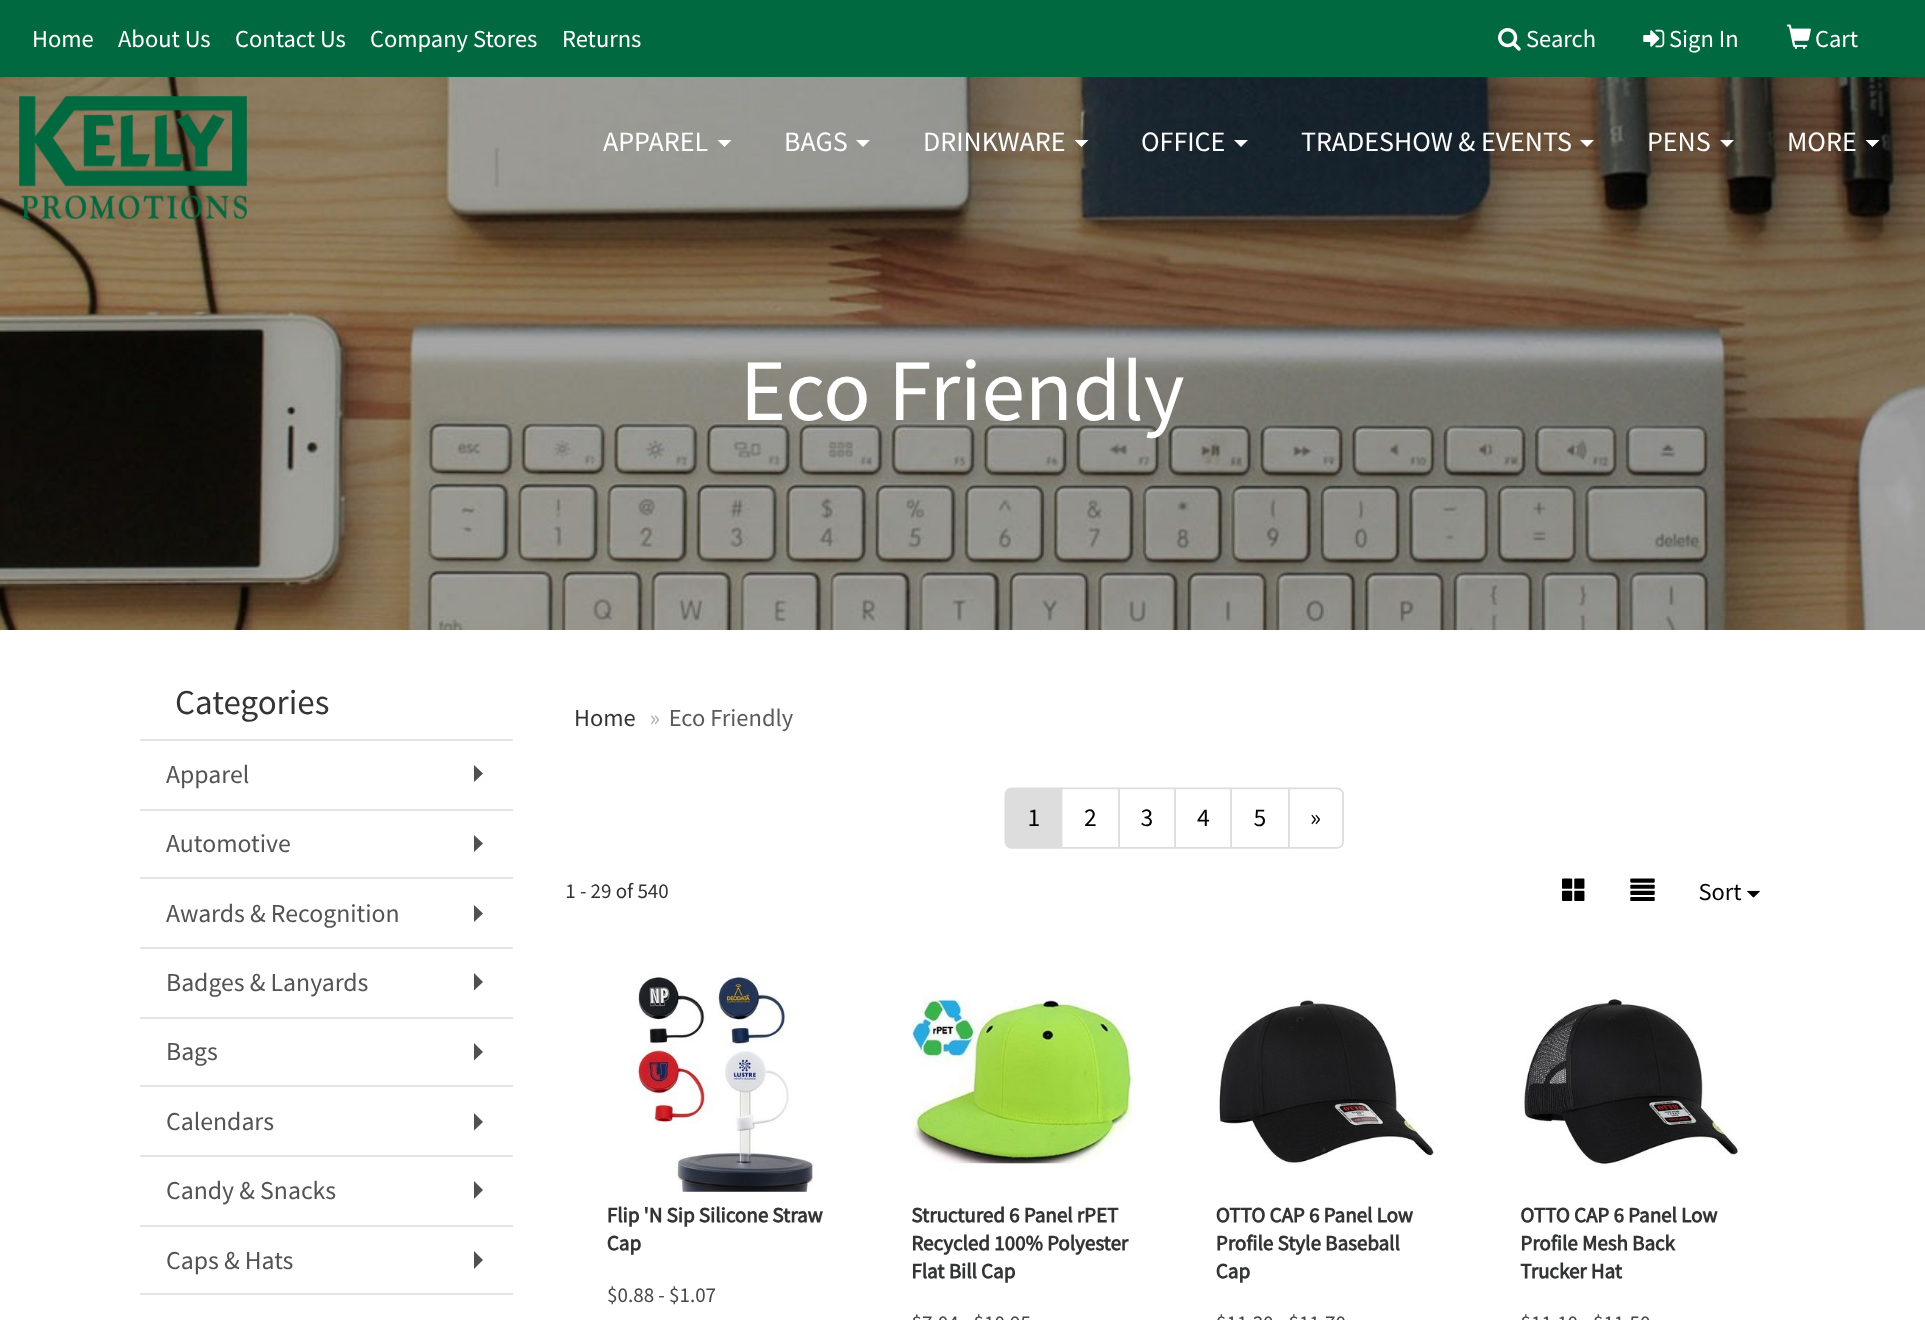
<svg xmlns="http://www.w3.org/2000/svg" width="1925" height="1320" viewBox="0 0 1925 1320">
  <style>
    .t1 { font: 24.5px Source Sans Pro; fill: #fff; }
    .t2 { font: 28px Source Sans Pro; fill: #fff; }
    .t3 { font: 87.5px Source Sans Pro; fill: #fff; }
    .t4 { font: 35px Source Sans Pro; fill: #333534; }
    .t5 { font: 25.75px Source Sans Pro; fill: #535353; }
  </style>
  <rect width="100%" height="100%" fill="#fff"/>
  <rect x="0" y="0" width="1925" height="77" fill="#006940"/>
  <text x="32" y="47" class="t1">Home</text>
  <text x="118" y="47" class="t1">About Us</text>
  <text x="235" y="47" class="t1">Contact Us</text>
  <text x="370" y="47" class="t1">Company Stores</text>
  <text x="562" y="47" class="t1">Returns</text>
  <image x="1498" y="28" width="23" height="23" href="images/1.png"/>
  <text x="1526" y="47" class="t1">Search</text>
  <image x="1643" y="29" width="22" height="19" href="images/2.png"/>
  <text x="1669" y="47" class="t1">Sign In</text>
  <image x="1786" y="24" width="25" height="25" href="images/3.png"/>
  <text x="1815" y="47" class="t1">Cart</text>
  <image x="0" y="77" width="1925" height="553" href="images/5.png"/>
  <image x="19" y="96" width="228" height="123" href="images/4.png"/>
  <text x="603" y="151" class="t2">APPAREL</text>
  <path d="M717.5 140H731.5L724.5 147Z" fill="#fff"/>
  <text x="784" y="151" class="t2">BAGS</text>
  <path d="M856 140H870L863 147Z" fill="#fff"/>
  <text x="923" y="151" class="t2">DRINKWARE</text>
  <path d="M1074.5 140H1088.5L1081.5 147Z" fill="#fff"/>
  <text x="1141" y="151" class="t2">OFFICE</text>
  <path d="M1234 140H1248L1241 147Z" fill="#fff"/>
  <text x="1301" y="151" class="t2">TRADESHOW &amp; EVENTS</text>
  <path d="M1580 140H1594L1587 147Z" fill="#fff"/>
  <text x="1647" y="151" class="t2">PENS</text>
  <path d="M1720 140H1734L1727 147Z" fill="#fff"/>
  <text x="1787" y="151" class="t2">MORE</text>
  <path d="M1865.5 140H1879.5L1872.5 147Z" fill="#fff"/>
  <text x="740" y="420" class="t3">Eco Friendly</text>
  <text x="175" y="714" class="t4">Categories</text>
  <rect x="140" y="739" width="373" height="2" fill="#e5e5e5"/>
  <text x="166" y="783" class="t5">Apparel</text>
  <path d="M474 782V765L483 773.5Z" fill="#515050"/>
  <rect x="140" y="809" width="373" height="2" fill="#e5e5e5"/>
  <text x="166" y="852" class="t5">Automotive</text>
  <path d="M474 852V835L483 843.5Z" fill="#515050"/>
  <rect x="140" y="877" width="373" height="2" fill="#e5e5e5"/>
  <text x="166" y="922" class="t5">Awards &amp; Recognition</text>
  <path d="M474 922V905L483 913.5Z" fill="#515050"/>
  <rect x="140" y="947" width="373" height="2" fill="#e5e5e5"/>
  <text x="166" y="991" class="t5">Badges &amp; Lanyards</text>
  <path d="M474 990.5V973L483 982Z" fill="#515050"/>
  <rect x="140" y="1017" width="373" height="2" fill="#e5e5e5"/>
  <text x="166" y="1060" class="t5">Bags</text>
  <path d="M474 1060.5V1043L483 1052Z" fill="#515050"/>
  <rect x="140" y="1085" width="373" height="2" fill="#e5e5e5"/>
  <text x="166" y="1130" class="t5">Calendars</text>
  <path d="M474 1130.5V1113L483 1122Z" fill="#515050"/>
  <rect x="140" y="1155" width="373" height="2" fill="#e5e5e5"/>
  <text x="166" y="1199" class="t5">Candy &amp; Snacks</text>
  <path d="M474 1199V1181L483 1190Z" fill="#515050"/>
  <rect x="140" y="1225" width="373" height="2" fill="#e5e5e5"/>
  <text x="166" y="1269" class="t5">Caps &amp; Hats</text>
  <path d="M474 1269V1251L483 1260Z" fill="#515050"/>
  <rect x="140" y="1293" width="373" height="2" fill="#e5e5e5"/>
  <image x="566" y="708" width="1194" height="612" href="images/6.png"/>
</svg>
